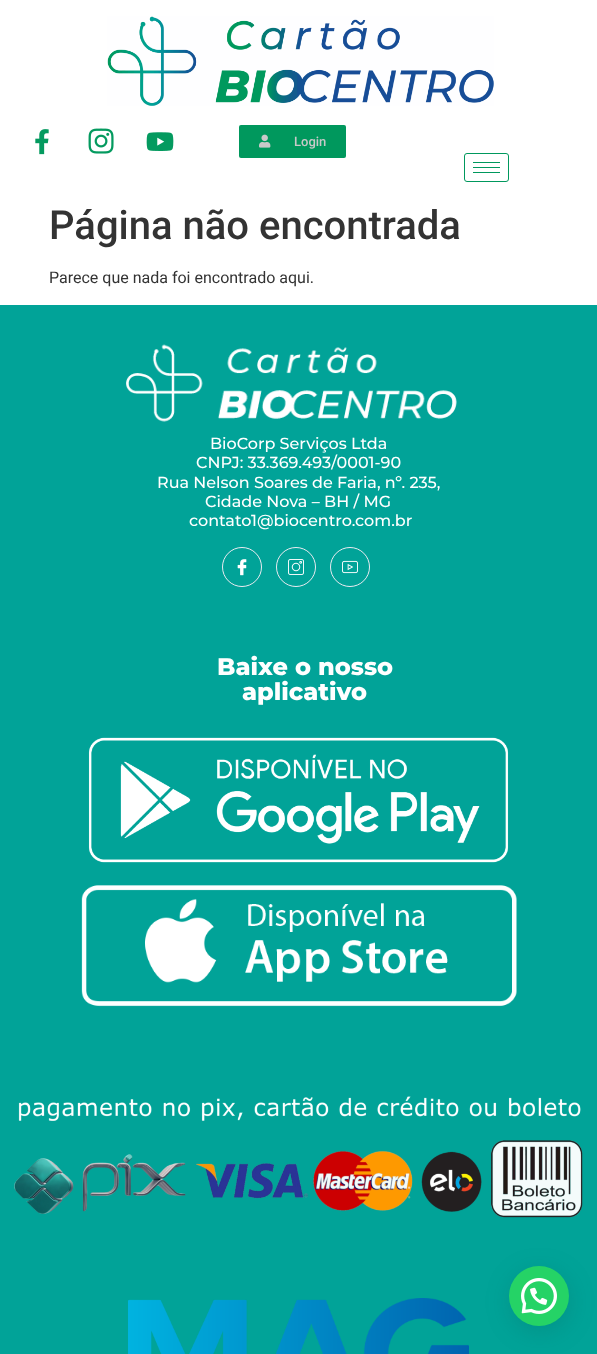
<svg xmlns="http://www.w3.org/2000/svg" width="597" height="1354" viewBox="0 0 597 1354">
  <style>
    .t1 { font: 500 13px Roboto; fill: #c9c9c9; }
    .t2 { font: 500 40px Roboto; fill: #333; }
    .t3 { font: 16px Roboto; fill: #333; }
    .t4 { font: 500 16px Montserrat; fill: #fff; }
    .t5 { font: 800 24px Montserrat; fill: #fff; }
  </style>
  <rect width="100%" height="100%" fill="#fff"/>
  <image x="107" y="16" width="387" height="90" href="images/1.png"/>
  <image x="35" y="129" width="14" height="26" href="images/2.png"/>
  <image x="88" y="128" width="26" height="26" href="images/3.png"/>
  <image x="146" y="132" width="28" height="19" href="images/4.png"/>
  <rect x="239" y="125" width="107" height="33" rx="2" fill="#00985d"/>
  <image x="259" y="134" width="12" height="14" href="images/5.png"/>
  <text x="294" y="146" class="t1">Login</text>
  <rect x="464.5" y="153.5" width="44" height="28" rx="2.5" fill="none" stroke="#00985d"/>
  <rect x="473" y="162" width="27" height="1" fill="#00985d"/>
  <rect x="473" y="167" width="27" height="1" fill="#00985d"/>
  <rect x="473" y="172" width="27" height="1" fill="#00985d"/>
  <text x="49" y="239" class="t2">Página não encontrada</text>
  <text x="49" y="283" class="t3">Parece que nada foi encontrado aqui.</text>
  <rect x="0" y="305" width="597" height="1049" fill="#01a398"/>
  <image x="126" y="344" width="331" height="78" href="images/6.png"/>
  <text x="210" y="449" class="t4">BioCorp Serviços Ltda</text>
  <text x="196" y="468" class="t4">CNPJ: 33.369.493/0001-90</text>
  <text x="157" y="488" class="t4">Rua Nelson Soares de Faria, nº. 235,</text>
  <text x="205" y="507" class="t4">Cidade Nova – BH / MG</text>
  <text x="189" y="526" class="t4">contato1@biocentro.com.br</text>
  <circle cx="242" cy="567" r="19.5" fill="none" stroke="#eaebf1"/>
  <image x="237" y="559" width="10" height="17" href="images/7.png"/>
  <circle cx="296" cy="567" r="19.5" fill="none" stroke="#eaebf1"/>
  <image x="288" y="559" width="16" height="16" href="images/8.png"/>
  <circle cx="350" cy="567" r="19.5" fill="none" stroke="#eaebf1"/>
  <image x="342" y="560" width="16" height="14" href="images/9.png"/>
  <text x="217" y="675" class="t5">Baixe o nosso</text>
  <text x="242" y="700" class="t5">aplicativo</text>
  <image x="88" y="737" width="421" height="126" href="images/10.png"/>
  <image x="81" y="885" width="436" height="122" href="images/11.png"/>
  <image x="14" y="1096" width="569" height="122" href="images/12.png"/>
  <image x="128" y="1298" width="341" height="56" href="images/13.png"/>
  <rect x="510" y="1272" width="60" height="60" rx="30" fill="#075e543d" filter="blur(12px)"/>
  <circle cx="539" cy="1296" r="30" fill="#25d366"/>
  <image x="521" y="1278" width="36" height="36" href="images/14.png"/>
</svg>
